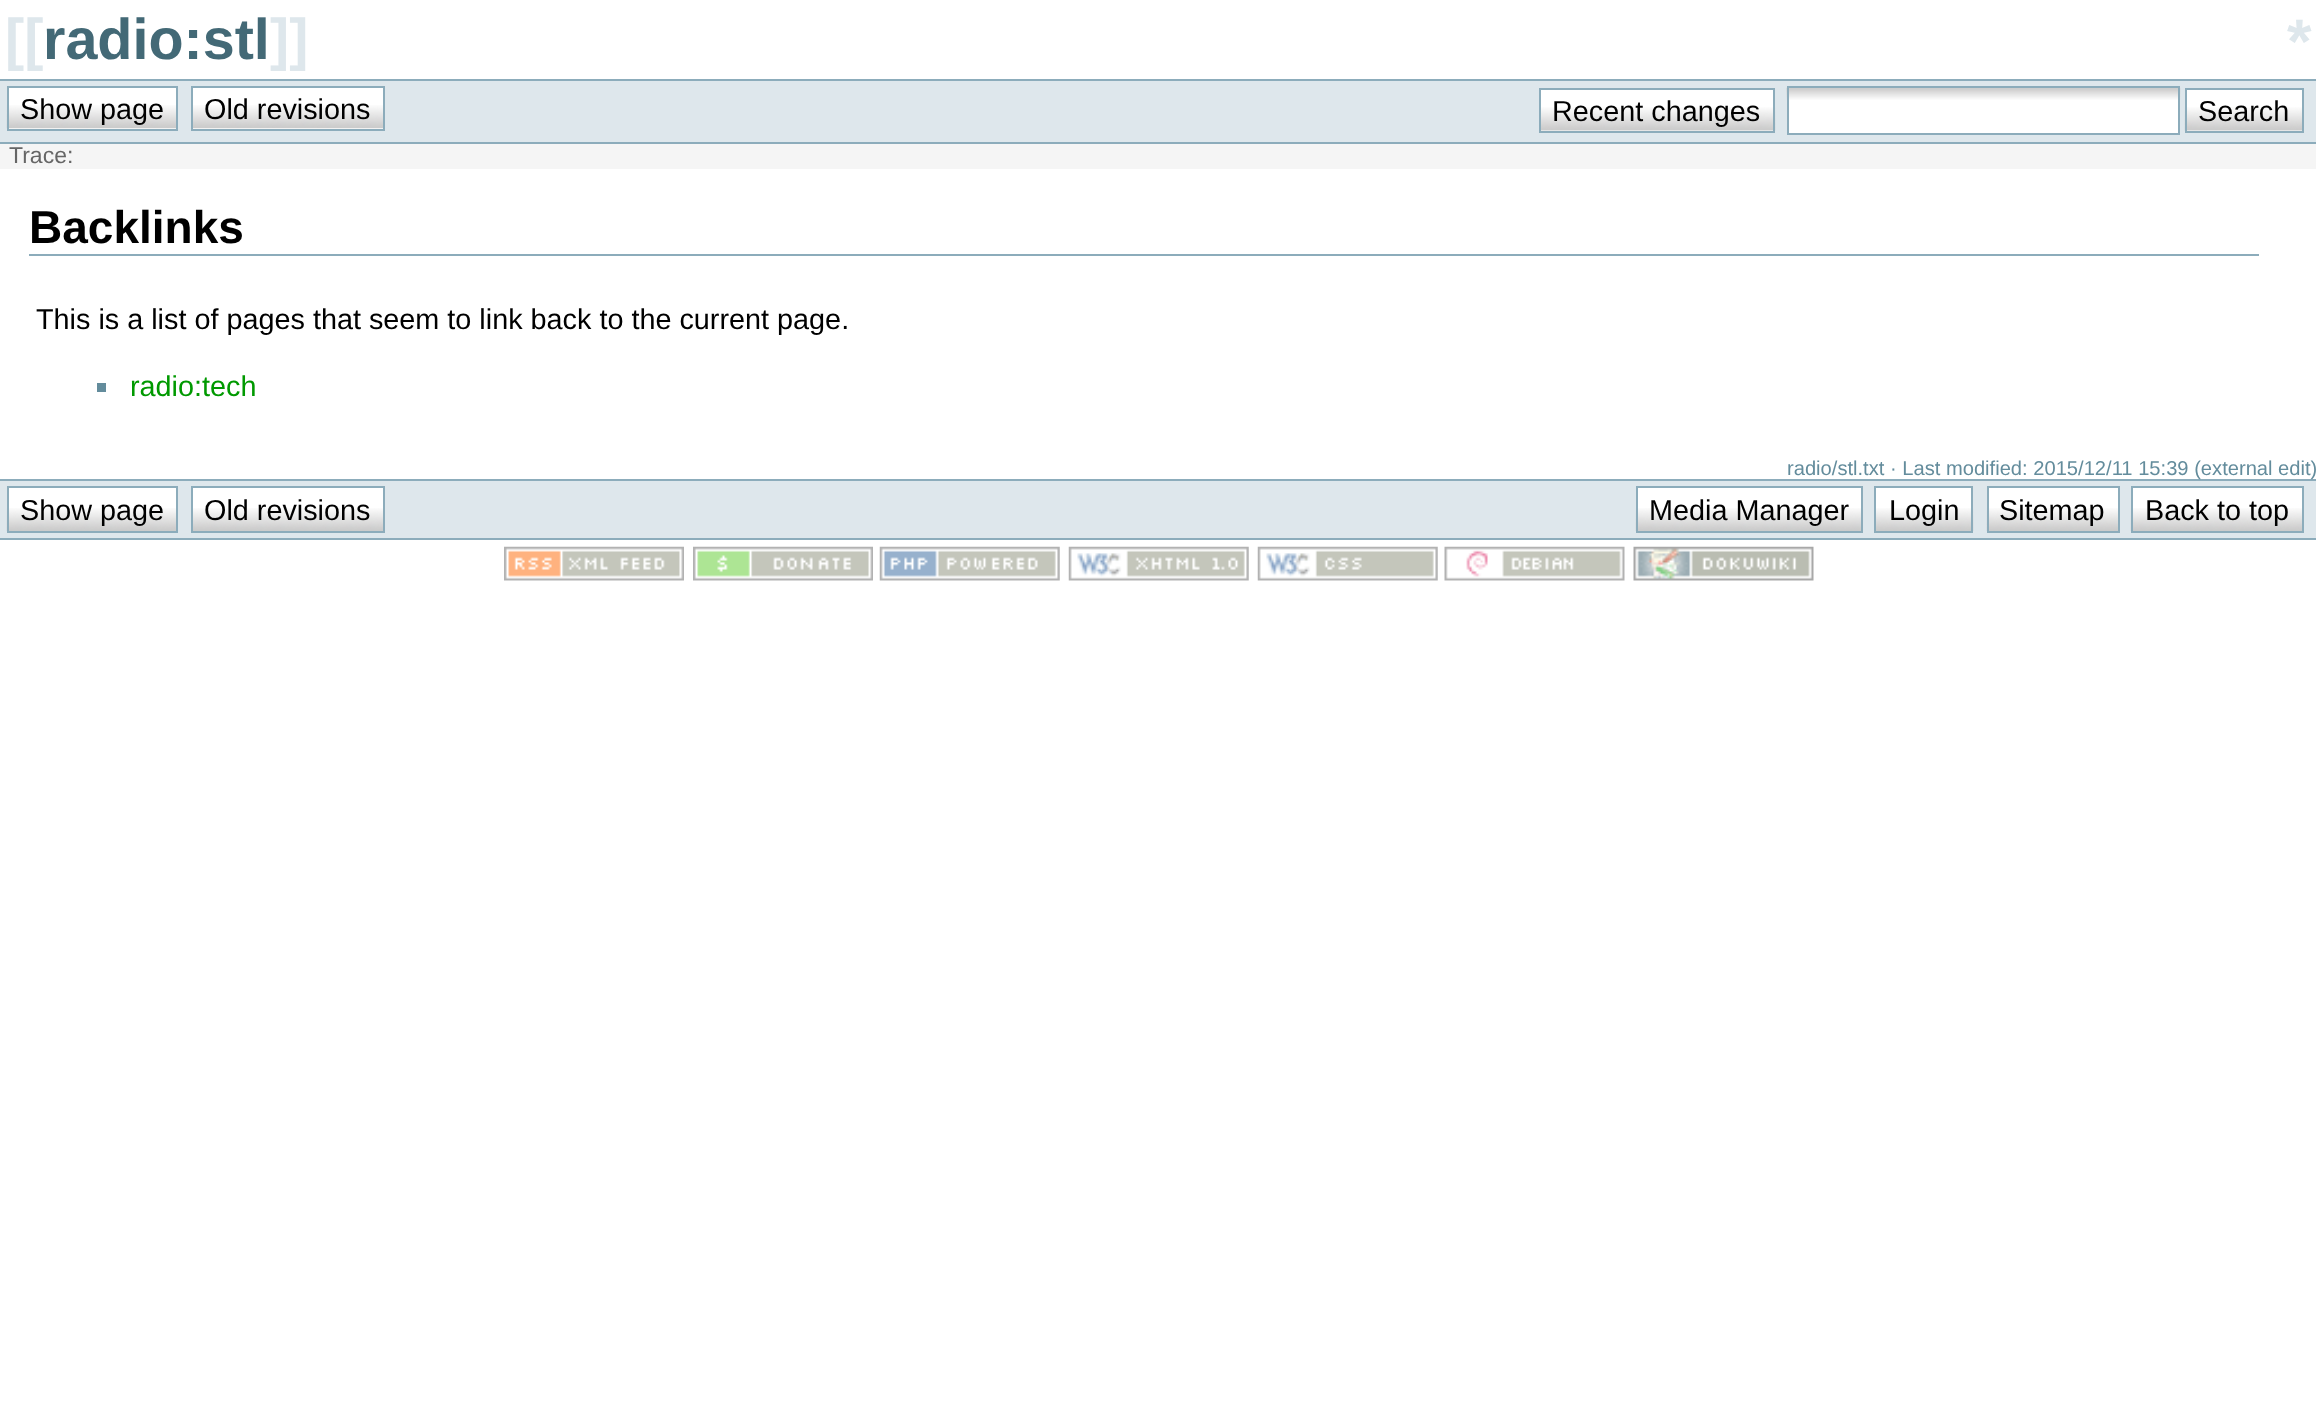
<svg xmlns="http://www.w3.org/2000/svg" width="2316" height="1403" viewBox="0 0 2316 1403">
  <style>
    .t1 { font: bold 57.5px Liberation Sans; fill: #dee7ec; }
    .t2 { font: bold 57.5px Liberation Sans; fill: #436976; }
    .t3 { font: bold 63px Liberation Sans; letter-spacing: 6px; fill: #dee7ec; }
    .t4 { font: 28.8px Liberation Sans; fill: #000; }
    .t5 { font: 23px Liberation Sans; fill: #666; }
    .t6 { font: bold 46px Liberation Sans; fill: #000; }
    .t7 { font: 28.8px Liberation Sans; fill: #090; }
    .t8 { font: 20.15px Liberation Sans; fill: #638c9c; }
  </style>
  <rect width="100%" height="100%" fill="#fff"/>
  <text x="5" y="59" class="t1">[[</text>
  <text x="43" y="59" class="t2">radio:stl</text>
  <text x="270" y="59" class="t1">]]</text>
  <text x="2287" y="63" class="t3">*</text>
  <rect x="0" y="81" width="2316" height="61" fill="#dee7ec"/>
  <rect x="0" y="79" width="2316" height="2" fill="#8cacbb"/>
  <rect x="0" y="142" width="2316" height="2" fill="#8cacbb"/>
  <rect x="9" y="88" width="167" height="41" fill="#fff"/>
  <image x="6" y="105" width="170" height="24" href="images/1.png"/>
  <rect x="8" y="87" width="169" height="43" fill="none" stroke="#8cacbb" stroke-width="2"/>
  <text x="20" y="119" class="t4">Show page</text>
  <rect x="193" y="88" width="190" height="41" fill="#fff"/>
  <image x="193" y="105" width="190" height="24" href="images/2.png"/>
  <rect x="192" y="87" width="192" height="43" fill="none" stroke="#8cacbb" stroke-width="2"/>
  <text x="204" y="119" class="t4">Old revisions</text>
  <rect x="1541" y="90" width="232" height="41" fill="#fff"/>
  <image x="1541" y="107" width="235" height="24" href="images/3.png"/>
  <rect x="1540" y="89" width="234" height="43" fill="none" stroke="#8cacbb" stroke-width="2"/>
  <text x="1552" y="121" class="t4">Recent changes</text>
  <rect x="1789" y="88" width="389" height="45" fill="#fff"/>
  <image x="1786" y="87" width="395" height="13" href="images/4.png"/>
  <rect x="1788" y="87" width="391" height="47" fill="none" stroke="#8cacbb" stroke-width="2"/>
  <rect x="2187" y="90" width="115" height="41" fill="#fff"/>
  <image x="2184" y="107" width="118" height="24" href="images/5.png"/>
  <rect x="2186" y="89" width="117" height="43" fill="none" stroke="#8cacbb" stroke-width="2"/>
  <text x="2198" y="121" class="t4">Search</text>
  <rect x="0" y="144" width="2316" height="25" fill="#f5f5f5"/>
  <text x="9" y="163" class="t5">Trace:</text>
  <rect x="29" y="254" width="2230" height="2" fill="#8cacbb"/>
  <text x="29" y="243" class="t6">Backlinks</text>
  <text x="36" y="329" class="t4">This is a list of pages that seem to link back to the current page.</text>
  <rect x="97" y="383" width="9" height="9" fill="#638c9c"/>
  <text x="130" y="396" class="t7">radio:tech</text>
  <rect x="0" y="479" width="2316" height="2" fill="#8cacbb"/>
  <text x="1787" y="475" class="t8">radio/stl.txt · Last modified: 2015/12/11 15:39 (external edit)</text>
  <rect x="0" y="481" width="2316" height="57" fill="#dee7ec"/>
  <rect x="0" y="538" width="2316" height="2" fill="#8cacbb"/>
  <rect x="9" y="488" width="167" height="42" fill="#fff"/>
  <image x="6" y="508" width="170" height="23" href="images/6.png"/>
  <rect x="8" y="487" width="169" height="45" fill="none" stroke="#8cacbb" stroke-width="2"/>
  <text x="20" y="520" class="t4">Show page</text>
  <rect x="193" y="488" width="190" height="42" fill="#fff"/>
  <image x="193" y="508" width="190" height="23" href="images/7.png"/>
  <rect x="192" y="487" width="192" height="45" fill="none" stroke="#8cacbb" stroke-width="2"/>
  <text x="204" y="520" class="t4">Old revisions</text>
  <rect x="1638" y="488" width="223" height="42" fill="#fff"/>
  <image x="1635" y="508" width="226" height="23" href="images/8.png"/>
  <rect x="1637" y="487" width="225" height="45" fill="none" stroke="#8cacbb" stroke-width="2"/>
  <text x="1649" y="520" class="t4">Media Manager</text>
  <rect x="1876" y="488" width="95" height="42" fill="#fff"/>
  <image x="1876" y="508" width="98" height="23" href="images/9.png"/>
  <rect x="1875" y="487" width="97" height="45" fill="none" stroke="#8cacbb" stroke-width="2"/>
  <text x="1889" y="520" class="t4">Login</text>
  <rect x="1989" y="488" width="129" height="42" fill="#fff"/>
  <image x="1986" y="508" width="132" height="23" href="images/10.png"/>
  <rect x="1988" y="487" width="131" height="45" fill="none" stroke="#8cacbb" stroke-width="2"/>
  <text x="1999" y="520" class="t4">Sitemap</text>
  <rect x="2133" y="488" width="169" height="42" fill="#fff"/>
  <image x="2130" y="508" width="172" height="23" href="images/11.png"/>
  <rect x="2132" y="487" width="171" height="45" fill="none" stroke="#8cacbb" stroke-width="2"/>
  <text x="2145" y="520" class="t4">Back to top</text>
  <image x="504" y="546" width="180" height="35" href="images/12.png"/>
  <image x="693" y="546" width="180" height="35" href="images/13.png"/>
  <image x="879" y="546" width="181" height="35" href="images/14.png"/>
  <image x="1068" y="546" width="181" height="35" href="images/15.png"/>
  <image x="1257" y="546" width="181" height="35" href="images/16.png"/>
  <image x="1444" y="546" width="181" height="35" href="images/17.png"/>
  <image x="1633" y="546" width="181" height="35" href="images/18.png"/>
</svg>
